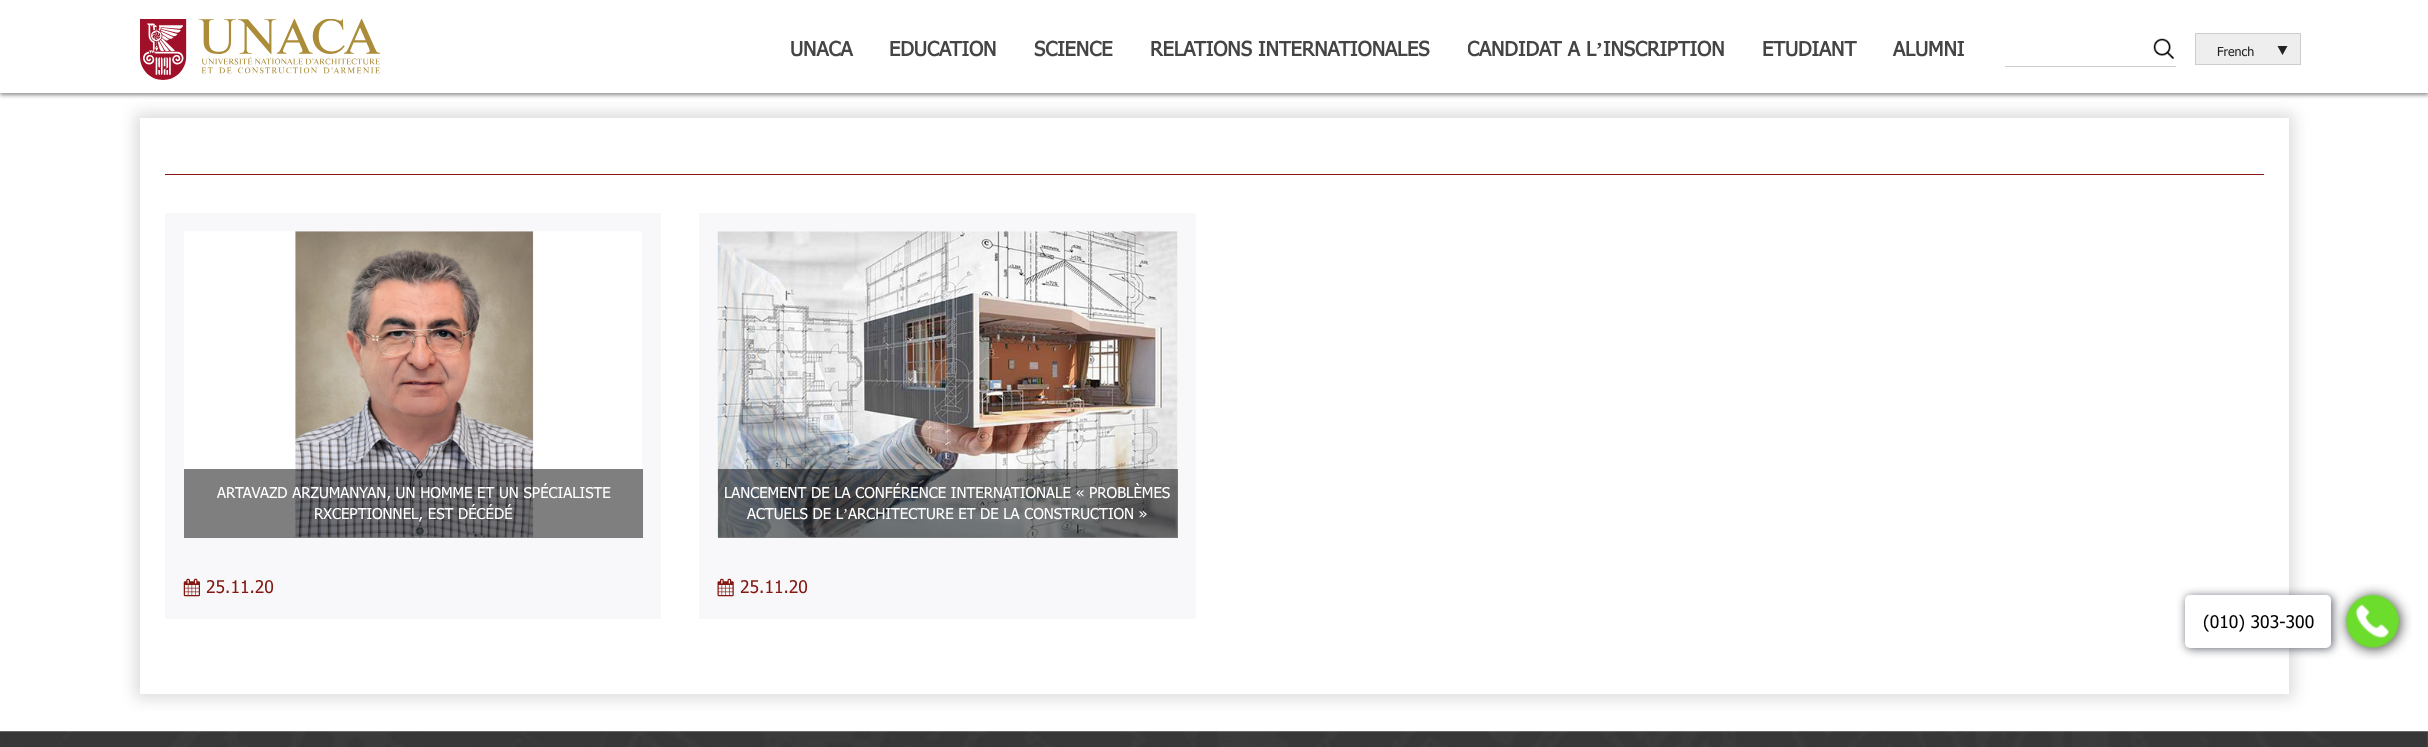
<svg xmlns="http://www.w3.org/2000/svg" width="2428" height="747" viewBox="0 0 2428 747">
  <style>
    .t1 { font: bold 20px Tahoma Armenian; fill: #454545; }
    .t2 { font: bold 20px Liberation Serif; fill: #454545; }
    .t3 { font: 12.5px Tahoma Armenian; fill: #222; }
    .t4 { font: 15px Tahoma Armenian; fill: #fff; }
    .t5 { font: 17.5px Tahoma Armenian; fill: #82180f; }
    .t6 { font: 15px Liberation Serif; fill: #fff; }
    .t7 { font: 17.5px Tahoma Armenian; fill: #000; }
  </style>
  <defs>
    <clipPath id="clip1"><path d="M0 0H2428V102H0ZM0 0H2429V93H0Z" clip-rule="evenodd"/></clipPath>
    <clipPath id="clip2"><rect x="1468" y="35" width="256" height="29"/></clipPath>
  </defs>
  <rect width="100%" height="100%" fill="#fff"/>
  <g clip-path="url(#clip1)">
    <rect x="0" y="3" width="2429" height="92" fill="#8b8b8b" filter="blur(2px)"/>
  </g>
  <image x="140" y="19" width="240" height="61" href="images/1.png"/>
  <text x="790" y="56" class="t1">UNACA</text>
  <text x="889" y="56" class="t1">EDUCATION</text>
  <text x="1034" y="56" class="t1">SCIENCE</text>
  <text x="1150" y="56" class="t1">RELATIONS INTERNATIONALES</text>
  <g clip-path="url(#clip2)">
    <text x="1467" y="56" class="t1">CANDIDAT A L</text>
  </g>
  <text x="1596" y="56" class="t2">’</text>
  <text x="1603" y="56" class="t1">INSCRIPTION</text>
  <text x="1762" y="56" class="t1">ETUDIANT</text>
  <text x="1893" y="56" class="t1">ALUMNI</text>
  <image x="2153" y="38" width="21" height="21" href="images/2.png"/>
  <rect x="2005" y="66" width="171" height="1" fill="#ccc"/>
  <rect x="2195.5" y="33.5" width="105" height="31" fill="#eee" stroke="#cdcdcd"/>
  <text x="2217" y="56" class="t3">French</text>
  <path d="M2277.5 46H2287.5L2282.5 55Z" fill="#222"/>
  <rect x="135" y="113" width="2159" height="586" fill="#dcdcdc" filter="blur(7.5px)"/>
  <rect x="140" y="118" width="2149" height="576" fill="#fff"/>
  <rect x="165" y="174" width="2099" height="1" fill="#82180f"/>
  <rect x="165" y="213" width="496" height="406" fill="#f8f8fa"/>
  <image x="184" y="231" width="458" height="307" href="images/3.png"/>
  <rect x="184" y="469" width="459" height="69" fill="#00000080"/>
  <text x="217" y="498" class="t4">ARTAVAZD ARZUMANYAN, UN HOMME ET UN SPÉCIALISTE</text>
  <text x="314" y="519" class="t4">RXCEPTIONNEL, EST DÉCÉDÉ</text>
  <image x="183" y="578" width="17" height="19" href="images/4.png"/>
  <text x="206" y="593" class="t5">25.11.20</text>
  <rect x="699" y="213" width="497" height="406" fill="#f8f8fa"/>
  <image x="717" y="231" width="461" height="307" href="images/5.png"/>
  <rect x="718" y="469" width="460" height="69" fill="#00000080"/>
  <text x="724" y="498" class="t4">LANCEMENT DE LA CONFÉRENCE INTERNATIONALE « PROBLÈMES</text>
  <text x="747" y="519" class="t4">ACTUELS DE L</text>
  <text x="843" y="519" class="t6">’</text>
  <text x="848" y="519" class="t4">ARCHITECTURE ET DE LA CONSTRUCTION »</text>
  <image x="717" y="578" width="17" height="19" href="images/6.png"/>
  <text x="740" y="593" class="t5">25.11.20</text>
  <rect x="2186" y="596" width="147" height="53" rx="5" fill="#3b404ccc" filter="blur(5px)"/>
  <rect x="2185" y="595" width="146" height="53" rx="5" fill="#fff"/>
  <text x="2203" y="628" class="t7">(010) 303-300</text>
  <image x="2336" y="584" width="76" height="76" href="images/7.png"/>
  <image x="0" y="731" width="2428" height="16" href="images/8.png"/>
</svg>
